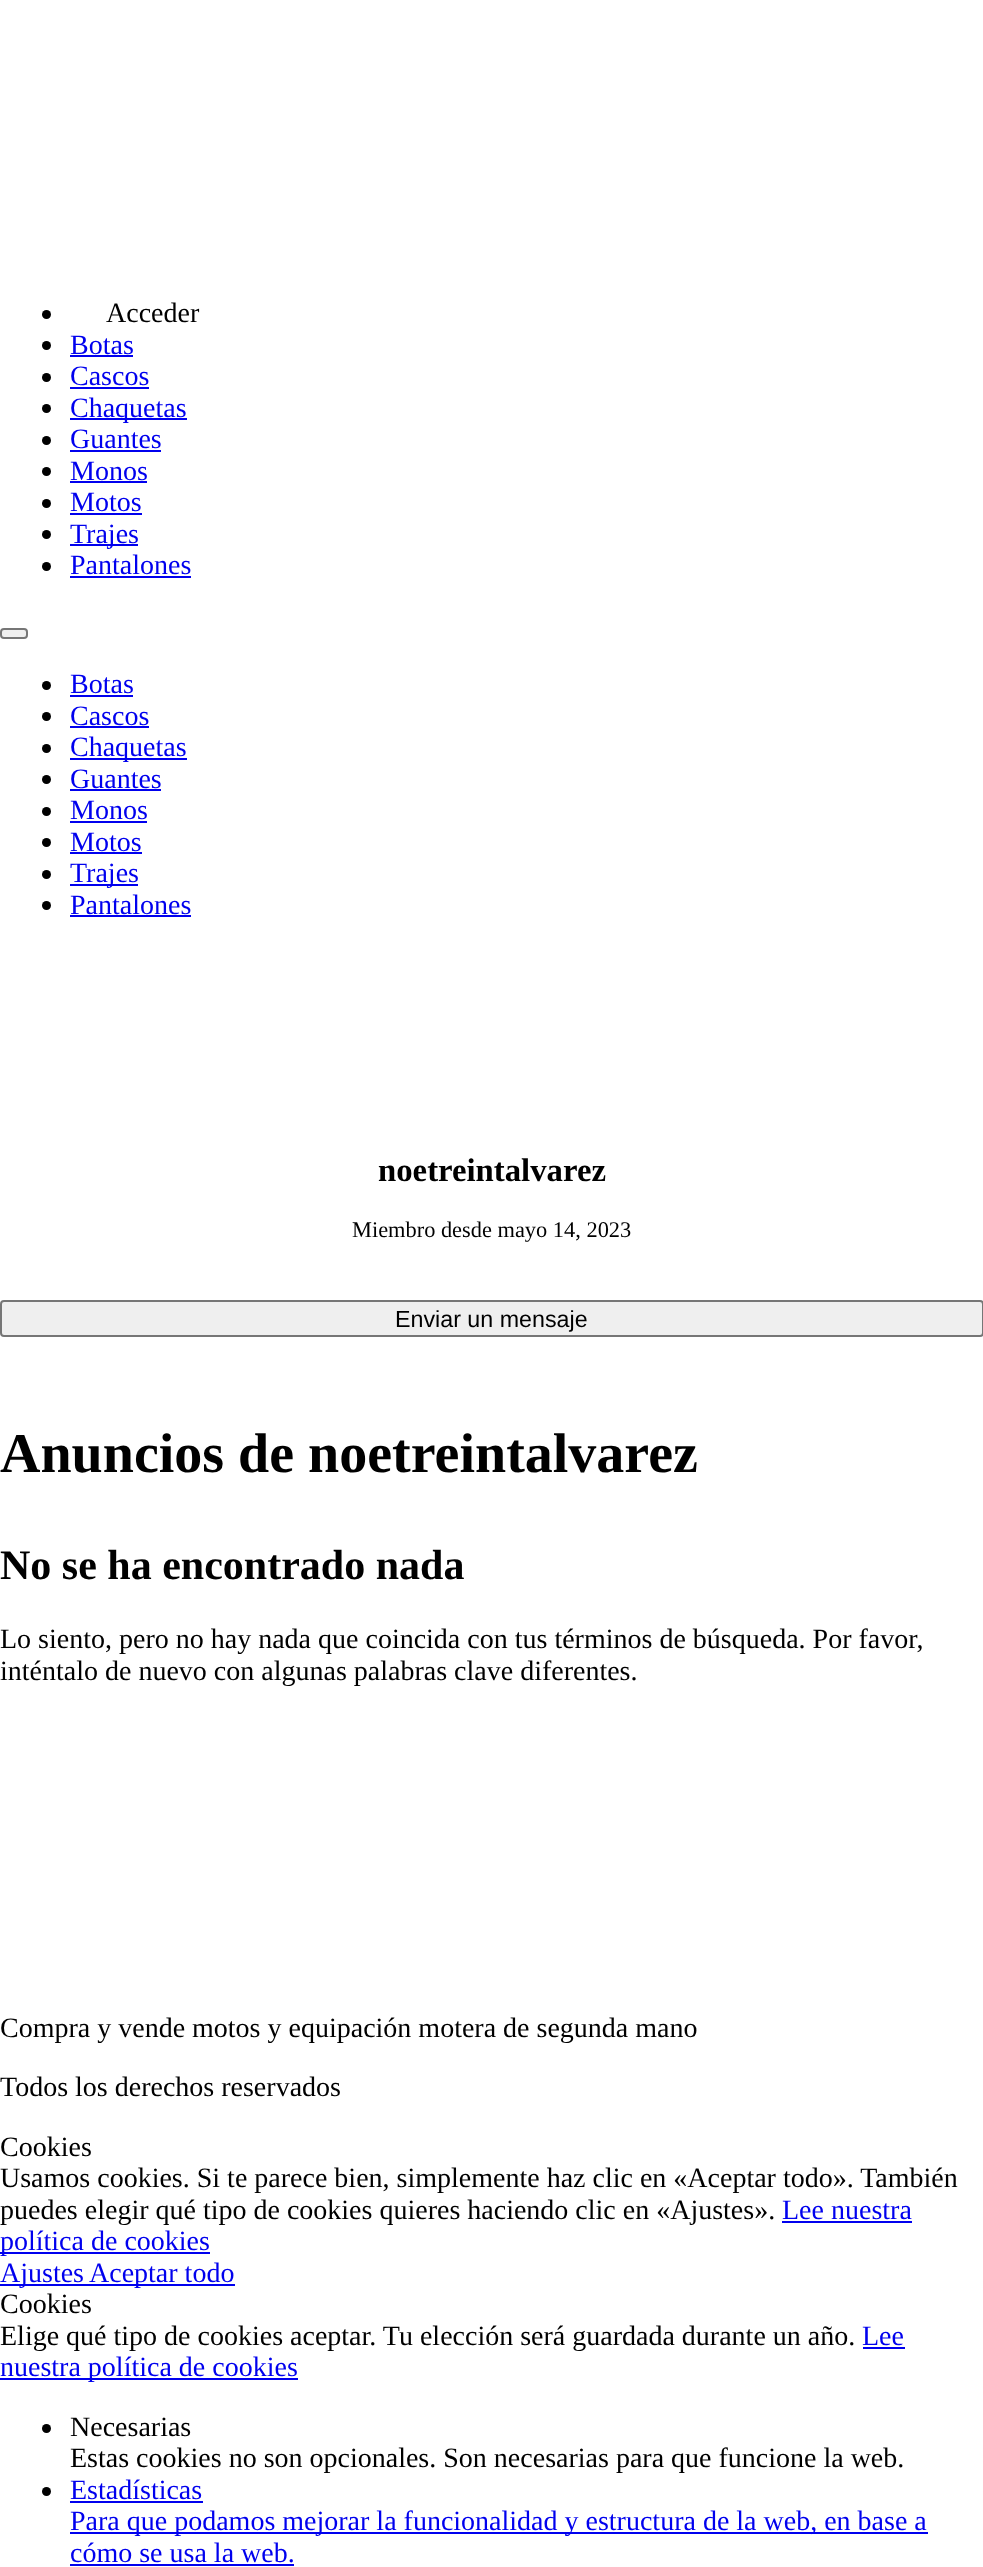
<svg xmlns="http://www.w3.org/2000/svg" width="983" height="2567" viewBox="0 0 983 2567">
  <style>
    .t1 { font: 28px Liberation Serif; fill: #000; }
    .t2 { font: 28px Liberation Serif; fill: #00e; }
    .t3 { font: bold 32.75px Liberation Serif; fill: #000; }
    .t4 { font: 22.4px Liberation Serif; fill: #000; }
    .t5 { font: 23.25px Liberation Sans; fill: #000; }
    .t6 { font: bold 56px Liberation Serif; fill: #000; }
    .t7 { font: bold 42px Liberation Serif; fill: #000; }
  </style>
  <rect width="100%" height="100%" fill="#fff"/>
  <circle cx="46.5" cy="314.5" r="4.5" fill="#000"/>
  <text x="106" y="322" class="t1">Acceder</text>
  <circle cx="46.5" cy="345.5" r="4.5" fill="#000"/>
  <text x="70" y="354" class="t2">Botas</text>
  <rect x="70" y="355" width="63" height="2" fill="#00e"/>
  <circle cx="46.5" cy="377.5" r="4.5" fill="#000"/>
  <text x="70" y="385" class="t2">Cascos</text>
  <rect x="70" y="387" width="79" height="2" fill="#00e"/>
  <circle cx="46.5" cy="408.5" r="4.5" fill="#000"/>
  <rect x="70" y="418" width="117" height="2" fill="#00e"/>
  <text x="70" y="417" class="t2">Chaquetas</text>
  <circle cx="46.5" cy="440.5" r="4.5" fill="#000"/>
  <text x="70" y="448" class="t2">Guantes</text>
  <rect x="70" y="450" width="91" height="2" fill="#00e"/>
  <circle cx="46.5" cy="471.5" r="4.5" fill="#000"/>
  <text x="70" y="480" class="t2">Monos</text>
  <rect x="70" y="481" width="77" height="2" fill="#00e"/>
  <circle cx="46.5" cy="503.5" r="4.5" fill="#000"/>
  <text x="70" y="511" class="t2">Motos</text>
  <rect x="70" y="513" width="72" height="2" fill="#00e"/>
  <circle cx="46.5" cy="534.5" r="4.5" fill="#000"/>
  <rect x="70" y="544" width="68" height="2" fill="#00e"/>
  <text x="70" y="543" class="t2">Trajes</text>
  <circle cx="46.5" cy="566.5" r="4.5" fill="#000"/>
  <text x="70" y="574" class="t2">Pantalones</text>
  <rect x="70" y="576" width="121" height="2" fill="#00e"/>
  <rect x="1" y="629" width="26" height="9" rx="3" fill="#efefef" stroke="#767676" stroke-width="2"/>
  <circle cx="46.5" cy="685.5" r="4.5" fill="#000"/>
  <text x="70" y="693" class="t2">Botas</text>
  <rect x="70" y="695" width="63" height="2" fill="#00e"/>
  <circle cx="46.5" cy="716.5" r="4.5" fill="#000"/>
  <text x="70" y="725" class="t2">Cascos</text>
  <rect x="70" y="726" width="79" height="2" fill="#00e"/>
  <circle cx="46.5" cy="748.5" r="4.5" fill="#000"/>
  <rect x="70" y="758" width="117" height="2" fill="#00e"/>
  <text x="70" y="756" class="t2">Chaquetas</text>
  <circle cx="46.5" cy="779.5" r="4.5" fill="#000"/>
  <text x="70" y="788" class="t2">Guantes</text>
  <rect x="70" y="789" width="91" height="2" fill="#00e"/>
  <circle cx="46.5" cy="811.5" r="4.5" fill="#000"/>
  <text x="70" y="819" class="t2">Monos</text>
  <rect x="70" y="821" width="77" height="2" fill="#00e"/>
  <circle cx="46.5" cy="842.5" r="4.5" fill="#000"/>
  <text x="70" y="851" class="t2">Motos</text>
  <rect x="70" y="852" width="72" height="2" fill="#00e"/>
  <circle cx="46.5" cy="874.5" r="4.5" fill="#000"/>
  <rect x="70" y="884" width="68" height="2" fill="#00e"/>
  <text x="70" y="882" class="t2">Trajes</text>
  <circle cx="46.5" cy="905.5" r="4.5" fill="#000"/>
  <text x="70" y="914" class="t2">Pantalones</text>
  <rect x="70" y="915" width="121" height="2" fill="#00e"/>
  <text x="378" y="1181" class="t3">noetreintalvarez</text>
  <text x="352" y="1237" class="t4">Miembro desde mayo 14, 2023</text>
  <rect x="1" y="1301" width="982" height="35" rx="3" fill="#efefef" stroke="#767676" stroke-width="2"/>
  <text x="395" y="1327" class="t5">Enviar un mensaje</text>
  <text x="0" y="1472" class="t6">Anuncios de noetreintalvarez</text>
  <text x="0" y="1579" class="t7">No se ha encontrado nada</text>
  <text x="0" y="1648" class="t1">Lo siento, pero no hay nada que coincida con tus términos de búsqueda. Por favor,</text>
  <text x="0" y="1680" class="t1">inténtalo de nuevo con algunas palabras clave diferentes.</text>
  <text x="0" y="2037" class="t1">Compra y vende motos y equipación motera de segunda mano</text>
  <text x="0" y="2096" class="t1">Todos los derechos reservados</text>
  <text x="0" y="2156" class="t1">Cookies</text>
  <text x="0" y="2187" class="t1">Usamos cookies. Si te parece bien, simplemente haz clic en «Aceptar todo». También</text>
  <text x="0" y="2219" class="t1">puedes elegir qué tipo de cookies quieres haciendo clic en «Ajustes».</text>
  <text x="782" y="2219" class="t2">Lee nuestra</text>
  <rect x="782" y="2221" width="130" height="2" fill="#00e"/>
  <rect x="0" y="2252" width="210" height="2" fill="#00e"/>
  <text x="0" y="2250" class="t2">política de cookies</text>
  <rect x="0" y="2284" width="235" height="2" fill="#00e"/>
  <text x="0" y="2282" class="t2">Ajustes</text>
  <text x="89" y="2282" class="t2">Aceptar todo</text>
  <text x="0" y="2313" class="t1">Cookies</text>
  <text x="0" y="2345" class="t1">Elige qué tipo de cookies aceptar. Tu elección será guardada durante un año.</text>
  <text x="862" y="2345" class="t2">Lee</text>
  <rect x="863" y="2347" width="42" height="2" fill="#00e"/>
  <rect x="0" y="2378" width="298" height="2" fill="#00e"/>
  <text x="0" y="2376" class="t2">nuestra política de cookies</text>
  <circle cx="46.5" cy="2428.5" r="4.5" fill="#000"/>
  <text x="70" y="2436" class="t1">Necesarias</text>
  <text x="70" y="2467" class="t1">Estas cookies no son opcionales. Son necesarias para que funcione la web.</text>
  <circle cx="46.5" cy="2491.5" r="4.5" fill="#000"/>
  <text x="70" y="2499" class="t2">Estadísticas</text>
  <rect x="70" y="2501" width="133" height="2" fill="#00e"/>
  <rect x="70" y="2532" width="858" height="2" fill="#00e"/>
  <text x="70" y="2530" class="t2">Para que podamos mejorar la funcionalidad y estructura de la web, en base a</text>
  <text x="70" y="2562" class="t2">cómo se usa la web.</text>
  <rect x="70" y="2564" width="224" height="2" fill="#00e"/>
</svg>
